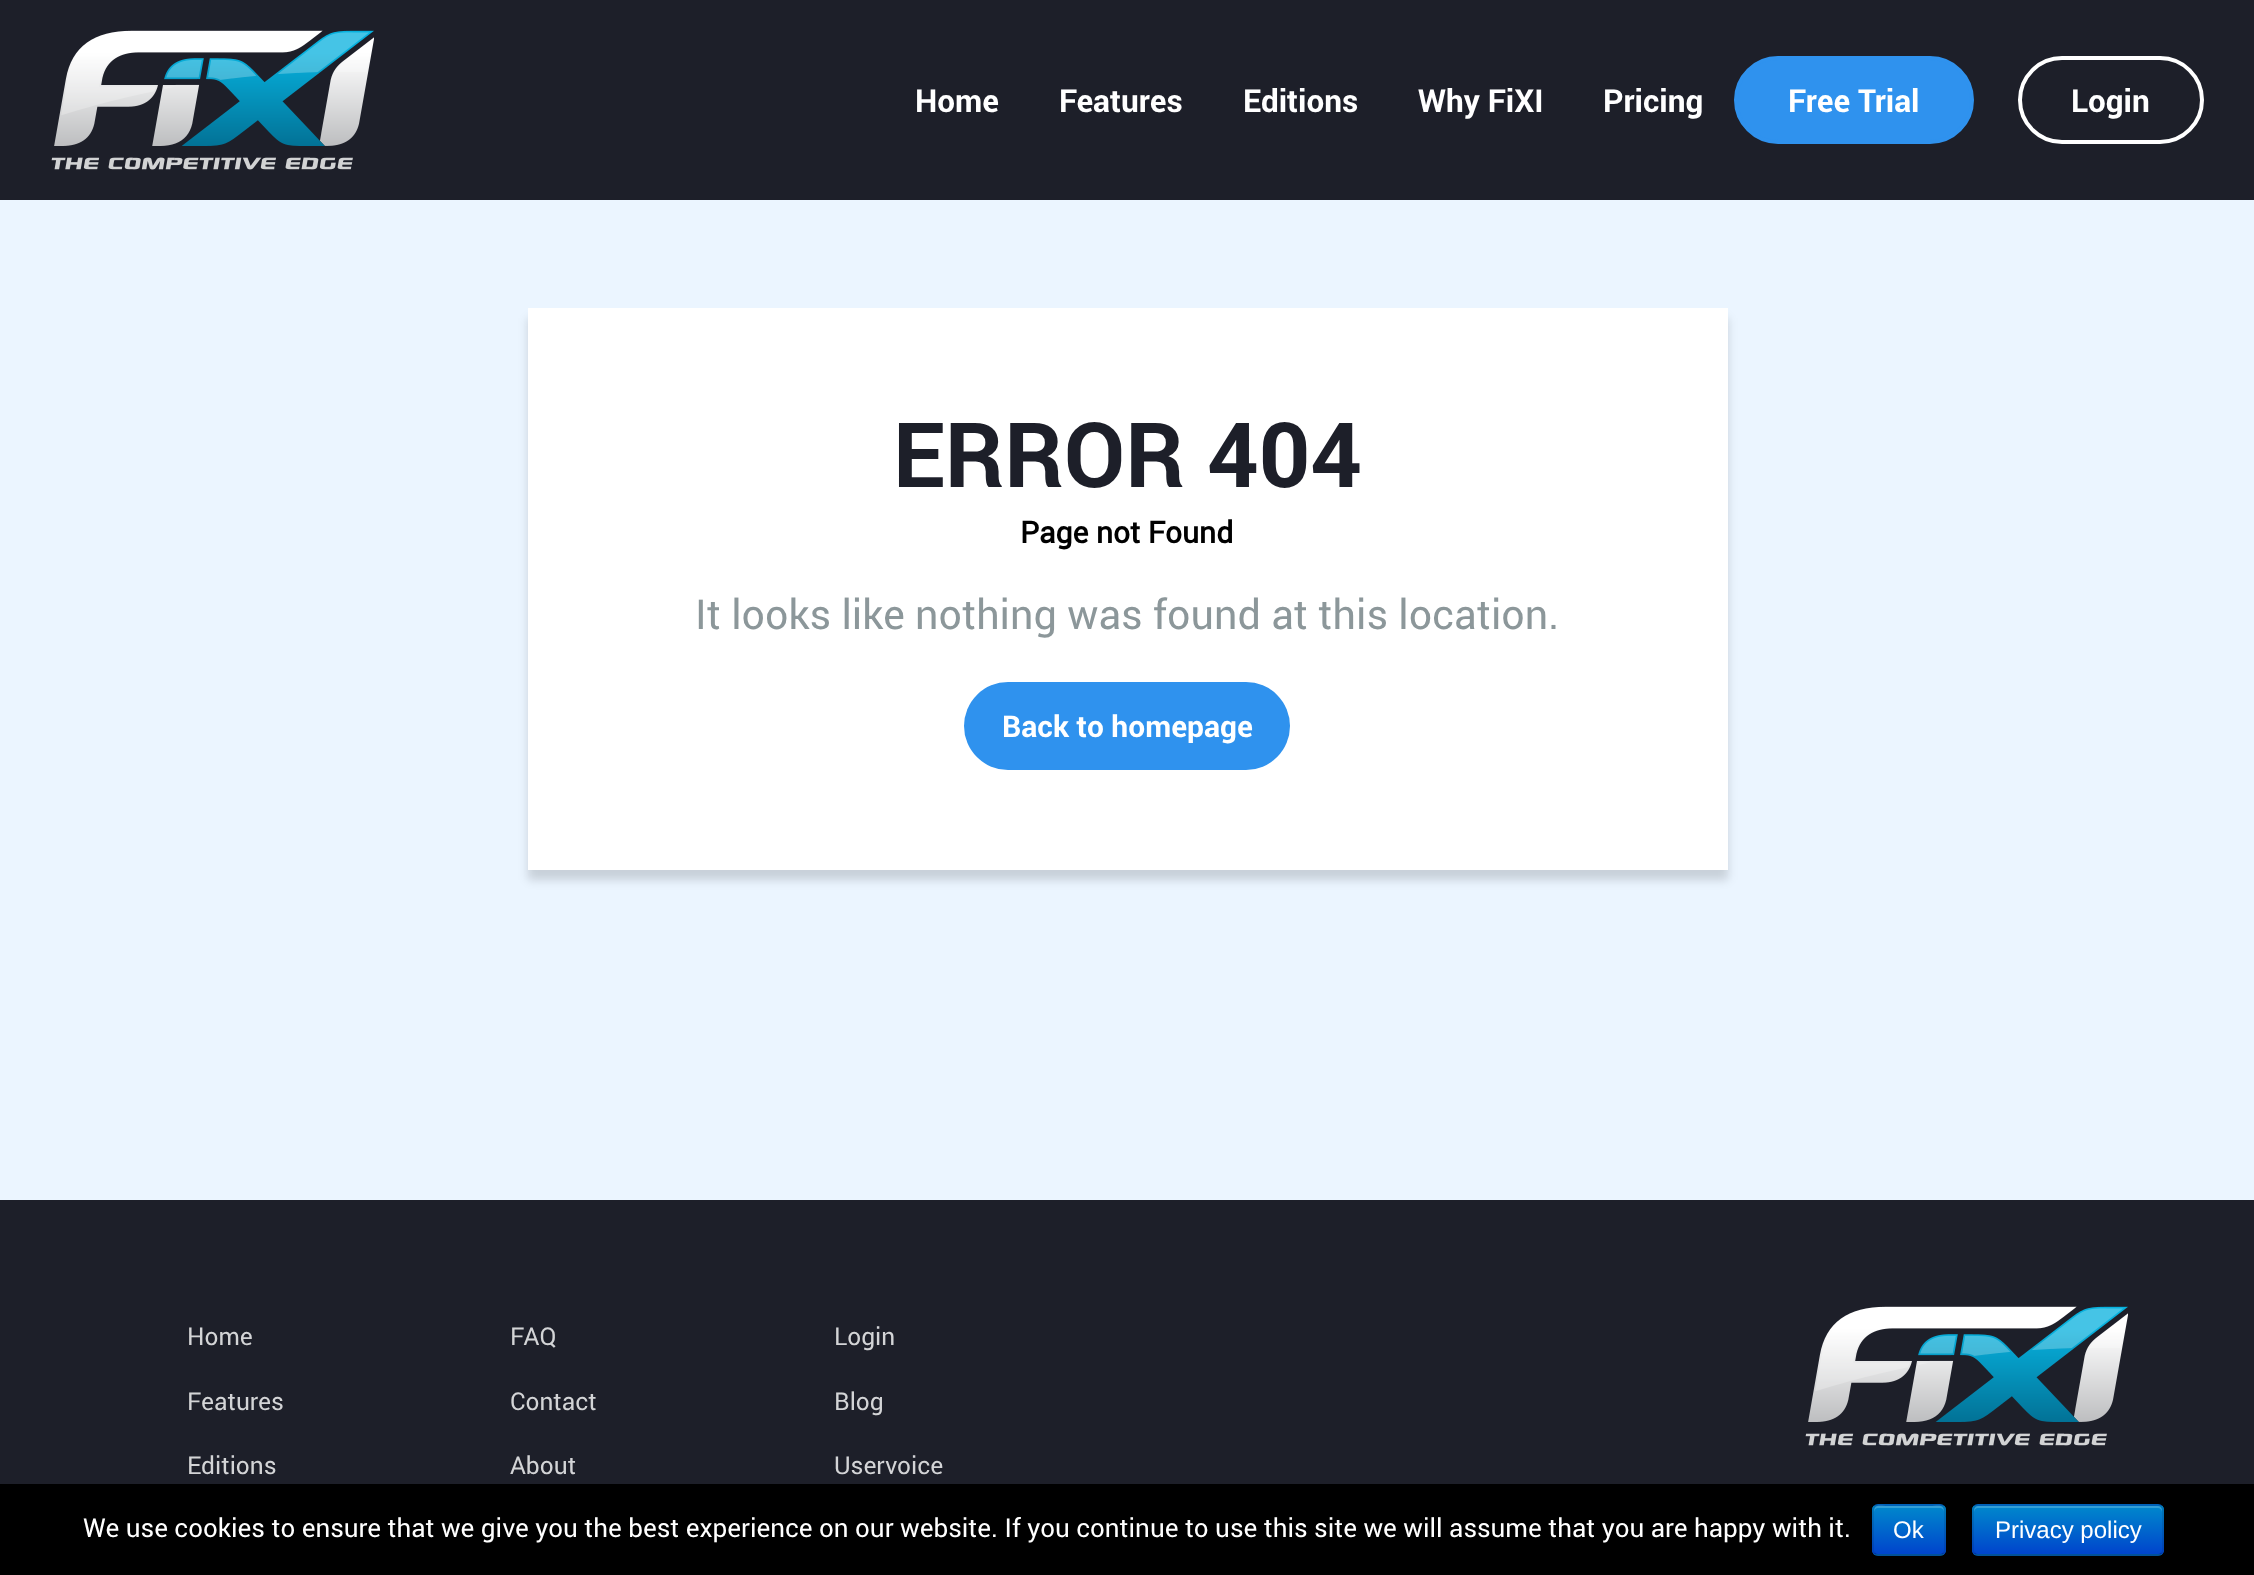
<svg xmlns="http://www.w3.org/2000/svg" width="2254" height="1575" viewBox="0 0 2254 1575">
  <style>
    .t1 { font: bold 31.5px roboto; fill: #fff; }
    .t2 { font: bold 90px roboto; fill: #1d1f29; }
    .t3 { font: bold 30px 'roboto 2'; fill: #000; }
    .t4 { font: 41.25px roboto; fill: #8c979a; }
    .t5 { font: bold 30px roboto; fill: #fff; }
    .t6 { font: 24.5px roboto; fill: #d3d4d6; }
    .t7 { font: 26px roboto; fill: #fff; }
    .t8 { font: 24px Liberation Sans; fill: #fff; }
  </style>
  <defs>
    <clipPath id="clip1"><rect x="1872" y="1504" width="74" height="52" rx="6"/></clipPath>
    <linearGradient id="g1" gradientUnits="userSpaceOnUse" x1="1909" y1="1506" x2="1909" y2="1554"><stop offset="0" stop-color="#08c"/><stop offset="1" stop-color="#04c"/></linearGradient>
    <clipPath id="clip2"><rect x="1972" y="1504" width="192" height="52" rx="6"/></clipPath>
    <linearGradient id="g2" gradientUnits="userSpaceOnUse" x1="2068" y1="1506" x2="2068" y2="1554"><stop offset="0" stop-color="#08c"/><stop offset="1" stop-color="#04c"/></linearGradient>
  </defs>
  <rect width="100%" height="100%" fill="#ebf5ff"/>
  <rect x="0" y="0" width="2254" height="200" fill="#1d1f29"/>
  <image x="51" y="30" width="323" height="140" href="images/1.png"/>
  <text x="915" y="112" class="t1">Home</text>
  <text x="1059" y="112" class="t1">Features</text>
  <text x="1243" y="112" class="t1">Editions</text>
  <text x="1418" y="112" class="t1">Why FiXI</text>
  <text x="1603" y="112" class="t1">Pricing</text>
  <rect x="1736" y="58" width="236" height="84" rx="42" fill="#2f92ee" stroke="#2f92ee" stroke-width="4"/>
  <text x="1788" y="112" class="t1">Free Trial</text>
  <rect x="2020" y="58" width="182" height="84" rx="42" fill="none" stroke="#fff" stroke-width="4"/>
  <text x="2071" y="112" class="t1">Login</text>
  <rect x="528" y="318" width="1200" height="562" fill="#00000026" filter="blur(5px)"/>
  <rect x="528" y="308" width="1200" height="562" fill="#fff"/>
  <text x="893" y="487" class="t2">ERROR 404</text>
  <text x="1020" y="543" class="t3">Page not Found</text>
  <text x="695" y="629" class="t4">It looks like nothing was found at this location.</text>
  <rect x="964" y="682" width="326" height="88" rx="44" fill="#2f92ee"/>
  <text x="1002" y="737" class="t5">Back to homepage</text>
  <rect x="0" y="1200" width="2254" height="284" fill="#1d1f29"/>
  <text x="187" y="1345" class="t6">Home</text>
  <text x="187" y="1410" class="t6">Features</text>
  <text x="187" y="1474" class="t6">Editions</text>
  <text x="510" y="1345" class="t6">FAQ</text>
  <text x="510" y="1410" class="t6">Contact</text>
  <text x="510" y="1474" class="t6">About</text>
  <text x="834" y="1345" class="t6">Login</text>
  <text x="834" y="1410" class="t6">Blog</text>
  <text x="834" y="1474" class="t6">Uservoice</text>
  <image x="1805" y="1306" width="323" height="140" href="images/1.png"/>
  <rect x="0" y="1484" width="2254" height="91" fill="#000"/>
  <text x="83" y="1537" class="t7">We use cookies to ensure that we give you the best experience on our website. If you continue to use this site we will assume that you are happy with it.</text>
  <rect x="1872" y="1504" width="74" height="52" rx="6" fill="#006dcc"/>
  <g clip-path="url(#clip1)">
    <rect x="1872" y="1506" width="74" height="48" fill="url(#g1)"/>
  </g>
  <path d="M1878 1508H1940C1942 1508 1944 1510 1944 1512C1944 1503 1937 1506 1930 1506H1888C1881 1506 1874 1503 1874 1512C1874 1510 1876 1508 1878 1508Z" fill="#ffffff33"/>
  <path d="M1943.5 1553.5C1942.5 1554.5 1941.5 1555 1940 1555H1878C1876.5 1555 1875.5 1554.5 1874.5 1553.5" fill="none" stroke="#00000040" stroke-width="2"/>
  <path d="M1874.5 1553.5C1873.5 1552.5 1873 1551.5 1873 1550V1510C1873 1508.5 1873.5 1507.5 1874.5 1506.5C1875.5 1505.5 1876.5 1505 1878 1505H1940C1941.5 1505 1942.5 1505.5 1943.5 1506.5C1944.5 1507.5 1945 1508.5 1945 1510V1550C1945 1551.5 1944.5 1552.5 1943.5 1553.5" fill="none" stroke="#0000001a" stroke-width="2"/>
  <text x="1893" y="1538" class="t8">Ok</text>
  <rect x="1972" y="1504" width="192" height="52" rx="6" fill="#006dcc"/>
  <g clip-path="url(#clip2)">
    <rect x="1972" y="1506" width="192" height="48" fill="url(#g2)"/>
  </g>
  <path d="M1978 1508H2158C2160 1508 2162 1510 2162 1512V1510C2162 1508 2160 1506 2158 1506H1978C1976 1506 1974 1508 1974 1510V1512C1974 1510 1976 1508 1978 1508Z" fill="#ffffff33"/>
  <path d="M2161.5 1553.5C2160.5 1554.5 2159.5 1555 2158 1555H1978C1976.5 1555 1975.5 1554.5 1974.5 1553.5" fill="none" stroke="#00000040" stroke-width="2"/>
  <path d="M1974.5 1553.5C1973.5 1552.5 1973 1551.5 1973 1550V1510C1973 1508.5 1973.5 1507.5 1974.5 1506.5C1975.5 1505.5 1976.5 1505 1978 1505H2158C2159.5 1505 2160.5 1505.5 2161.5 1506.5C2162.5 1507.5 2163 1508.5 2163 1510V1550C2163 1551.5 2162.5 1552.5 2161.5 1553.5" fill="none" stroke="#0000001a" stroke-width="2"/>
  <text x="1995" y="1538" class="t8">Privacy policy</text>
</svg>
